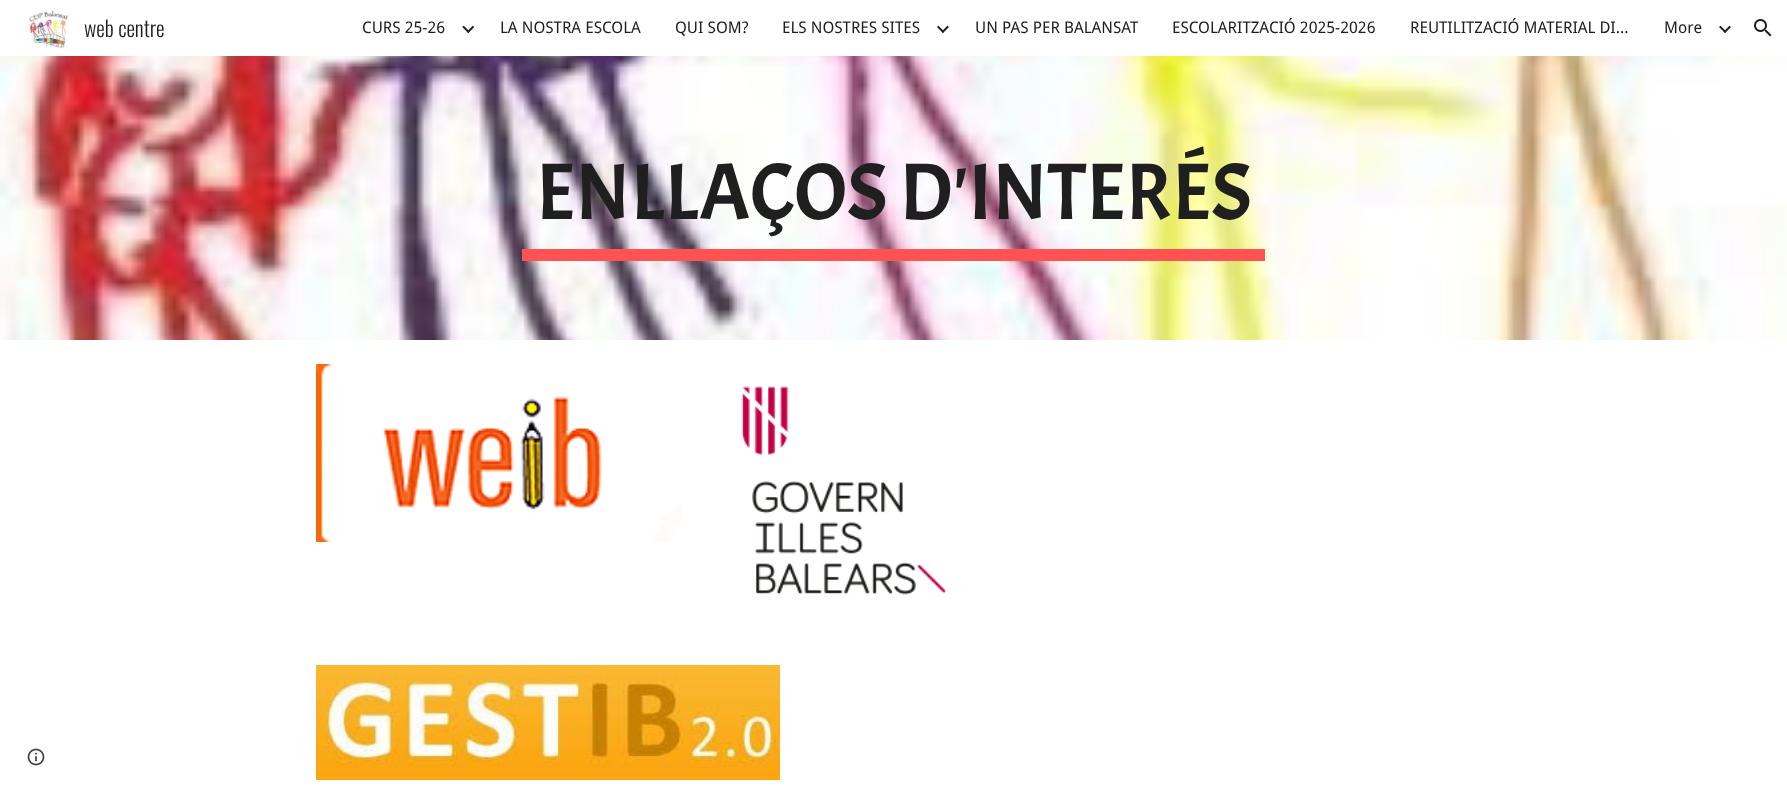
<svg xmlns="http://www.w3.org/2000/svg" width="1787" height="791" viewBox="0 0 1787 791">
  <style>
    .t1 { font: 300 21.5px Oswald; fill: #1f1f1f; }
    .t2 { font: 16px Droid Sans; fill: #1f1f1f; }
    .t3 { font: 80px Acme; fill: #1f1f1f; }
  </style>
  <rect width="100%" height="100%" fill="#fff"/>
  <image x="28" y="10" width="40" height="38" href="images/1.png"/>
  <text x="84" y="37" class="t1">web centre</text>
  <text x="362" y="33" class="t2">CURS 25-26</text>
  <image x="462" y="25" width="13" height="8" href="images/2.png"/>
  <text x="500" y="33" class="t2">LA NOSTRA ESCOLA</text>
  <text x="675" y="33" class="t2">QUI SOM?</text>
  <text x="782" y="33" class="t2">ELS NOSTRES SITES</text>
  <image x="937" y="25" width="12" height="8" href="images/3.png"/>
  <text x="975" y="33" class="t2">UN PAS PER BALANSAT</text>
  <text x="1172" y="33" class="t2">ESCOLARITZACIÓ 2025-2026</text>
  <text x="1410" y="33" class="t2">REUTILITZACIÓ MATERIAL DI...</text>
  <text x="1664" y="33" class="t2">More</text>
  <image x="1719" y="25" width="12" height="8" href="images/4.png"/>
  <image x="1754" y="19" width="18" height="18" href="images/5.png"/>
  <image x="0" y="56" width="1787" height="284" href="images/6.png"/>
  <text x="536" y="219" class="t3">ENLLAÇOS D'INTERÉS</text>
  <rect x="522" y="249" width="743" height="12" fill="#ff5252"/>
  <image x="316" y="364" width="365" height="178" href="images/7.png"/>
  <image x="741" y="386" width="205" height="209" href="images/8.png"/>
  <image x="316" y="665" width="464" height="115" href="images/9.png"/>
  <image x="27" y="748" width="18" height="18" href="images/10.png"/>
</svg>
